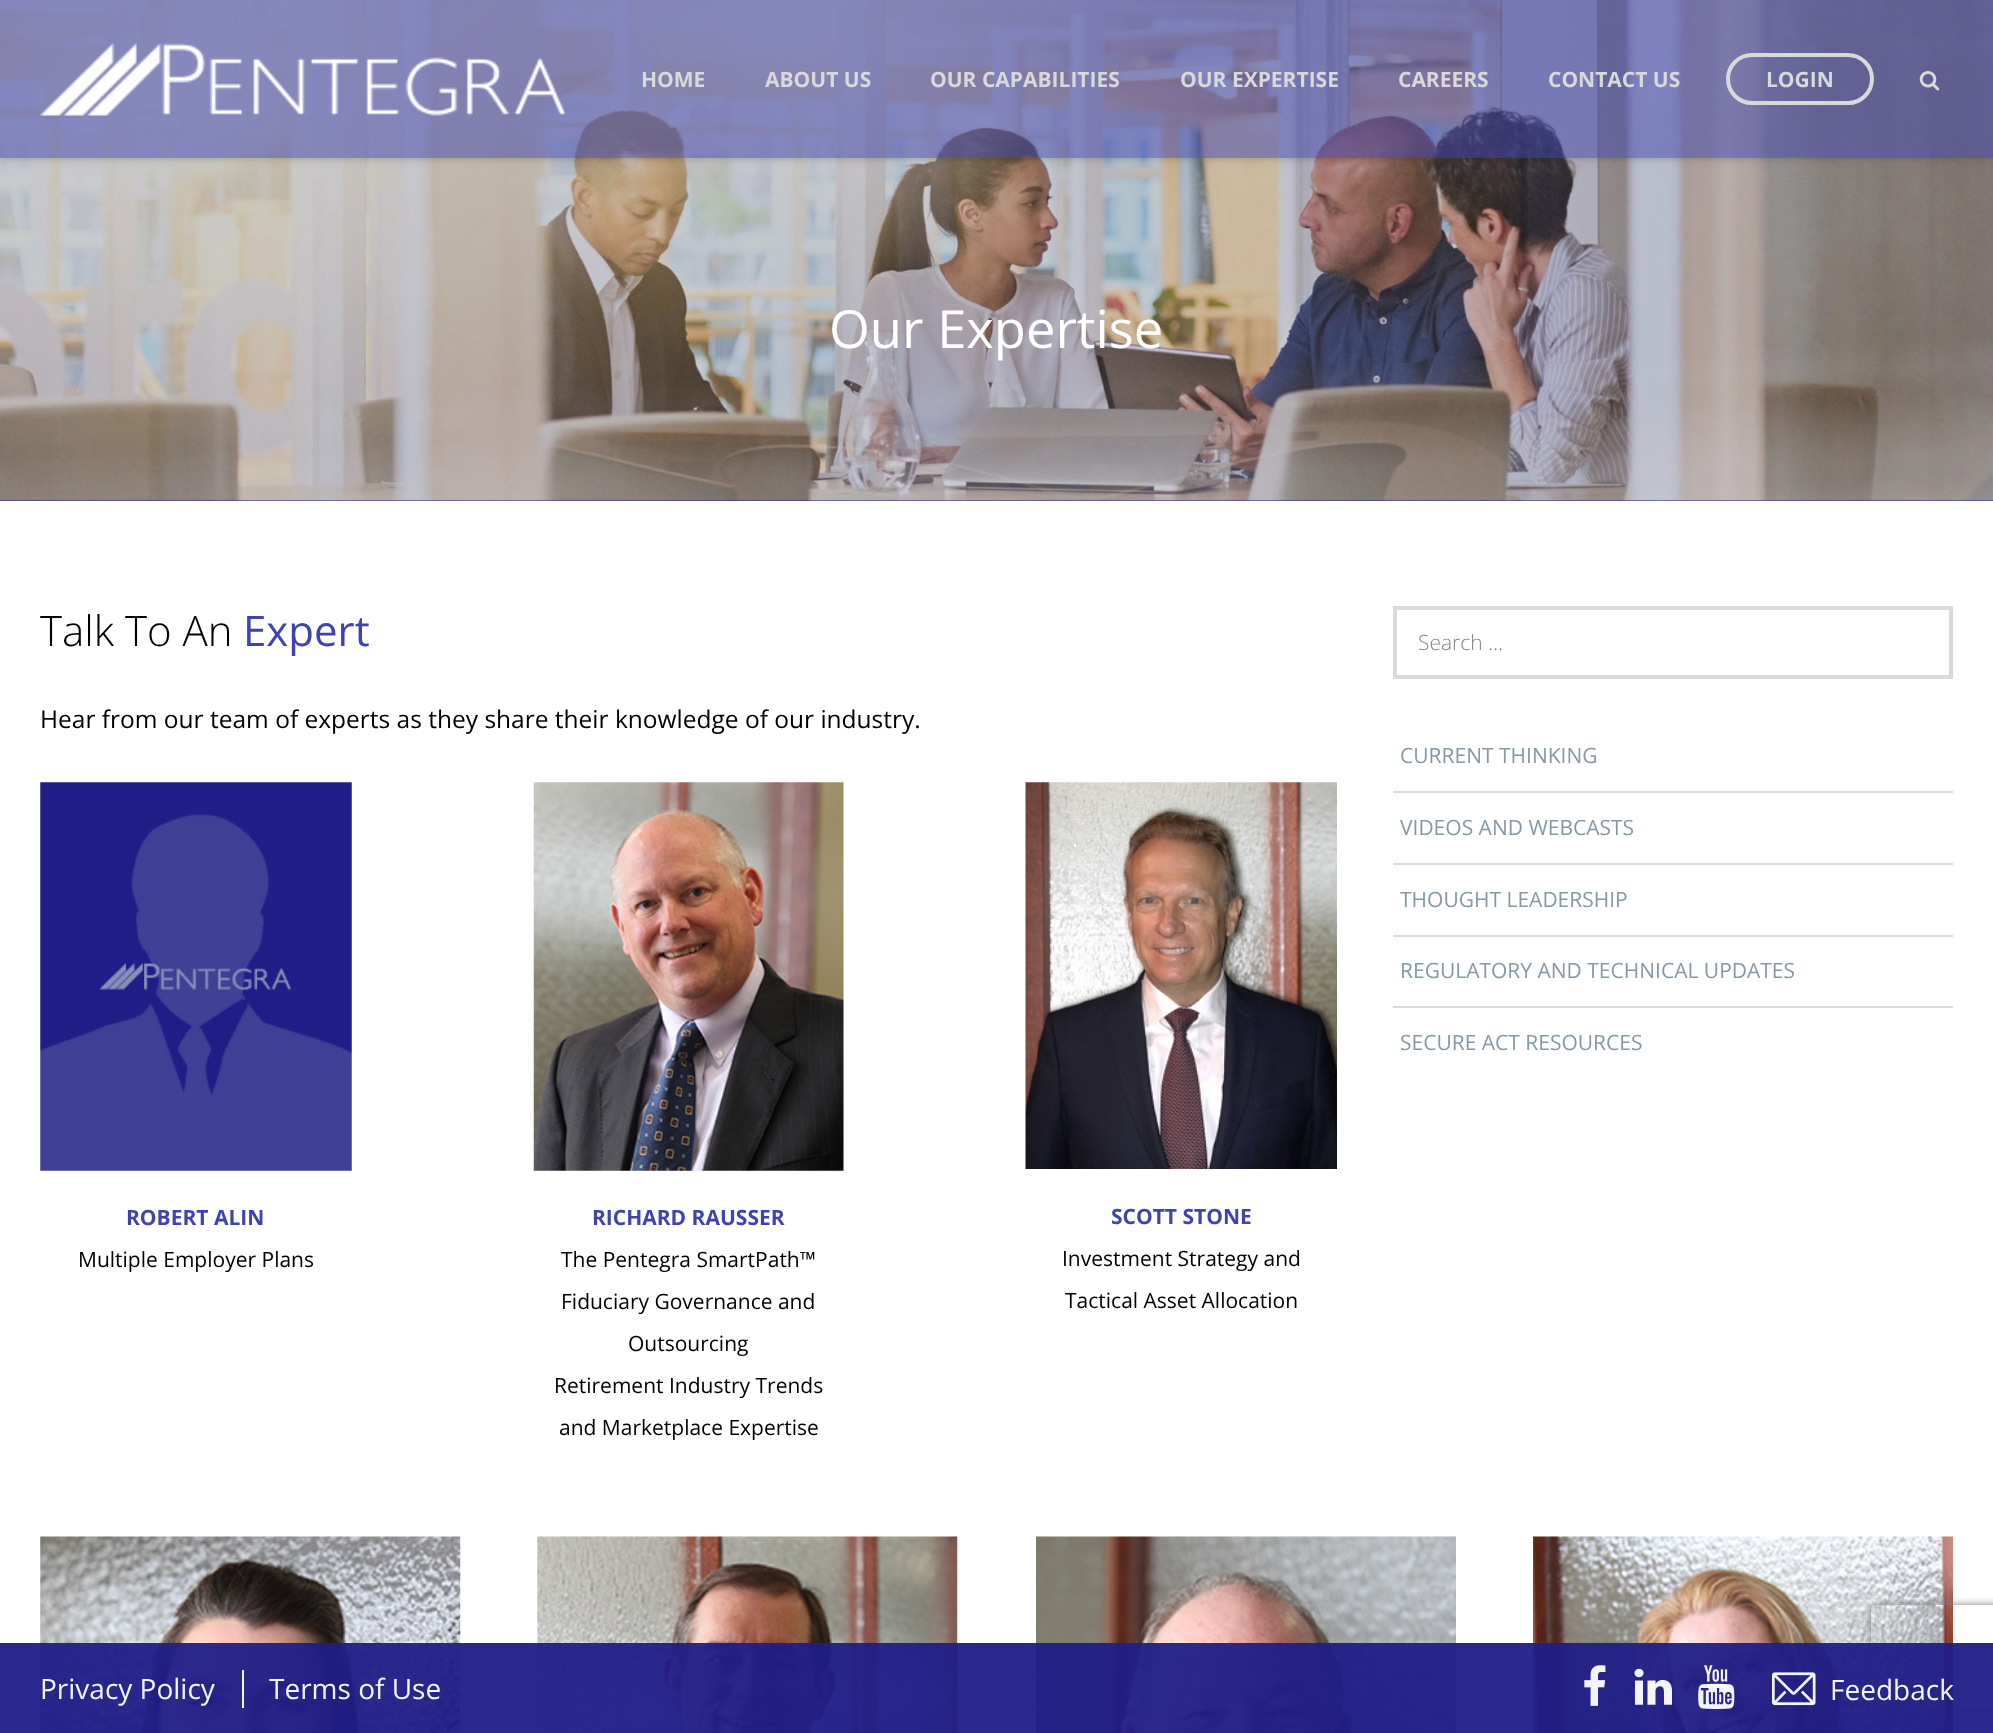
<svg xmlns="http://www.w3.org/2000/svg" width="1993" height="1733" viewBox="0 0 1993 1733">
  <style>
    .t1 { font: bold 21px Open Sans; fill: #d9d9d9; }
    .t2 { font: 52.5px Open Sans; fill: #fff; }
    .t3 { font: 300 42px Open Sans; fill: #000; }
    .t4 { font: 42px Open Sans; fill: #3f43ad; }
    .t5 { font: 24.5px Open Sans; fill: #000; }
    .t6 { font: bold 21px Open Sans; fill: #3f43ad; }
    .t7 { font: 21px Open Sans; fill: #000; }
    .t8 { font: 300 21px Open Sans; fill: #838383; }
    .t9 { font: 21px Open Sans; fill: #8499a5; }
    .t10 { font: 28px Open Sans; fill: #f4f4f9; }
  </style>
  <defs>
    <clipPath id="clip1"><path d="M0 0H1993V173H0ZM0 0H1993V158H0Z" clip-rule="evenodd"/></clipPath>
    <clipPath id="clip2"><path d="M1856 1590H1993V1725H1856ZM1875 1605H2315C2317 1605 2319 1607 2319 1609V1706C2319 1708 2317 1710 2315 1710H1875C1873 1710 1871 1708 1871 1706V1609C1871 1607 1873 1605 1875 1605Z" clip-rule="evenodd"/></clipPath>
  </defs>
  <rect width="100%" height="100%" fill="#fff"/>
  <rect x="0" y="500" width="1993" height="1" fill="#201e87"/>
  <image x="0" y="0" width="1993" height="501" href="images/3.png"/>
  <g clip-path="url(#clip1)">
    <rect x="0" y="0" width="1993" height="158" fill="#2626264d" filter="blur(4.5px)"/>
  </g>
  <rect x="0" y="0" width="1993" height="158" fill="#3f43ad80"/>
  <image x="40" y="43" width="526" height="73" href="images/1.png"/>
  <text x="641" y="87" class="t1">HOME</text>
  <text x="765" y="87" class="t1">ABOUT US</text>
  <text x="930" y="87" class="t1">OUR CAPABILITIES</text>
  <text x="1180" y="87" class="t1">OUR EXPERTISE</text>
  <text x="1398" y="87" class="t1">CAREERS</text>
  <text x="1548" y="87" class="t1">CONTACT US</text>
  <rect x="1728" y="55" width="144" height="48" rx="24" fill="none" stroke="#d9d9d9" stroke-width="4"/>
  <text x="1766" y="87" class="t1">LOGIN</text>
  <image x="1919" y="71" width="21" height="20" href="images/2.png"/>
  <text x="829" y="348" class="t2">Our Expertise</text>
  <text x="40" y="646" class="t3">Talk To An</text>
  <text x="243" y="646" class="t4">Expert</text>
  <text x="40" y="728" class="t5">Hear from our team of experts as they share their knowledge of our industry.</text>
  <image x="40" y="782" width="312" height="389" href="images/4.png"/>
  <text x="126" y="1225" class="t6">ROBERT ALIN</text>
  <text x="78" y="1267" class="t7">Multiple Employer Plans</text>
  <image x="533" y="782" width="311" height="389" href="images/5.png"/>
  <text x="592" y="1225" class="t6">RICHARD RAUSSER</text>
  <text x="561" y="1267" class="t7">The Pentegra SmartPath™</text>
  <text x="561" y="1309" class="t7">Fiduciary Governance and</text>
  <text x="628" y="1351" class="t7">Outsourcing</text>
  <text x="554" y="1393" class="t7">Retirement Industry Trends</text>
  <text x="559" y="1435" class="t7">and Marketplace Expertise</text>
  <image x="1025" y="782" width="312" height="387" href="images/6.png"/>
  <text x="1111" y="1224" class="t6">SCOTT STONE</text>
  <text x="1062" y="1266" class="t7">Investment Strategy and</text>
  <text x="1065" y="1308" class="t7">Tactical Asset Allocation</text>
  <rect x="1395" y="608" width="556" height="69" fill="none" stroke="#d9d9d9" stroke-width="4"/>
  <text x="1418" y="650" class="t8">Search …</text>
  <rect x="1393" y="791" width="560" height="2" fill="#d9d9d9"/>
  <text x="1400" y="763" class="t9">CURRENT THINKING</text>
  <rect x="1393" y="863" width="560" height="2" fill="#d9d9d9"/>
  <text x="1400" y="835" class="t9">VIDEOS AND WEBCASTS</text>
  <rect x="1393" y="935" width="560" height="2" fill="#d9d9d9"/>
  <text x="1400" y="907" class="t9">THOUGHT LEADERSHIP</text>
  <rect x="1393" y="1006" width="560" height="2" fill="#d9d9d9"/>
  <text x="1400" y="978" class="t9">REGULATORY AND TECHNICAL UPDATES</text>
  <text x="1400" y="1050" class="t9">SECURE ACT RESOURCES</text>
  <image x="40" y="1536" width="421" height="197" href="images/7.png"/>
  <image x="537" y="1536" width="421" height="197" href="images/8.png"/>
  <image x="1036" y="1536" width="420" height="197" href="images/9.png"/>
  <image x="1533" y="1536" width="420" height="197" href="images/10.png"/>
  <g clip-path="url(#clip2)">
    <rect x="1871" y="1605" width="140" height="105" rx="4" fill="#808080" filter="blur(4.5px)"/>
  </g>
  <rect x="0" y="1643" width="1993" height="90" fill="#201e87f2"/>
  <text x="40" y="1699" class="t10">Privacy Policy</text>
  <rect x="242" y="1670" width="2" height="38" fill="#f4f4f9"/>
  <text x="269" y="1699" class="t10">Terms of Use</text>
  <image x="1584" y="1665" width="22" height="41" href="images/11.png"/>
  <image x="1634" y="1668" width="38" height="37" href="images/12.png"/>
  <image x="1698" y="1665" width="37" height="44" href="images/13.png"/>
  <image x="1771" y="1672" width="45" height="34" href="images/14.png"/>
  <text x="1830" y="1700" class="t10">Feedback</text>
</svg>
